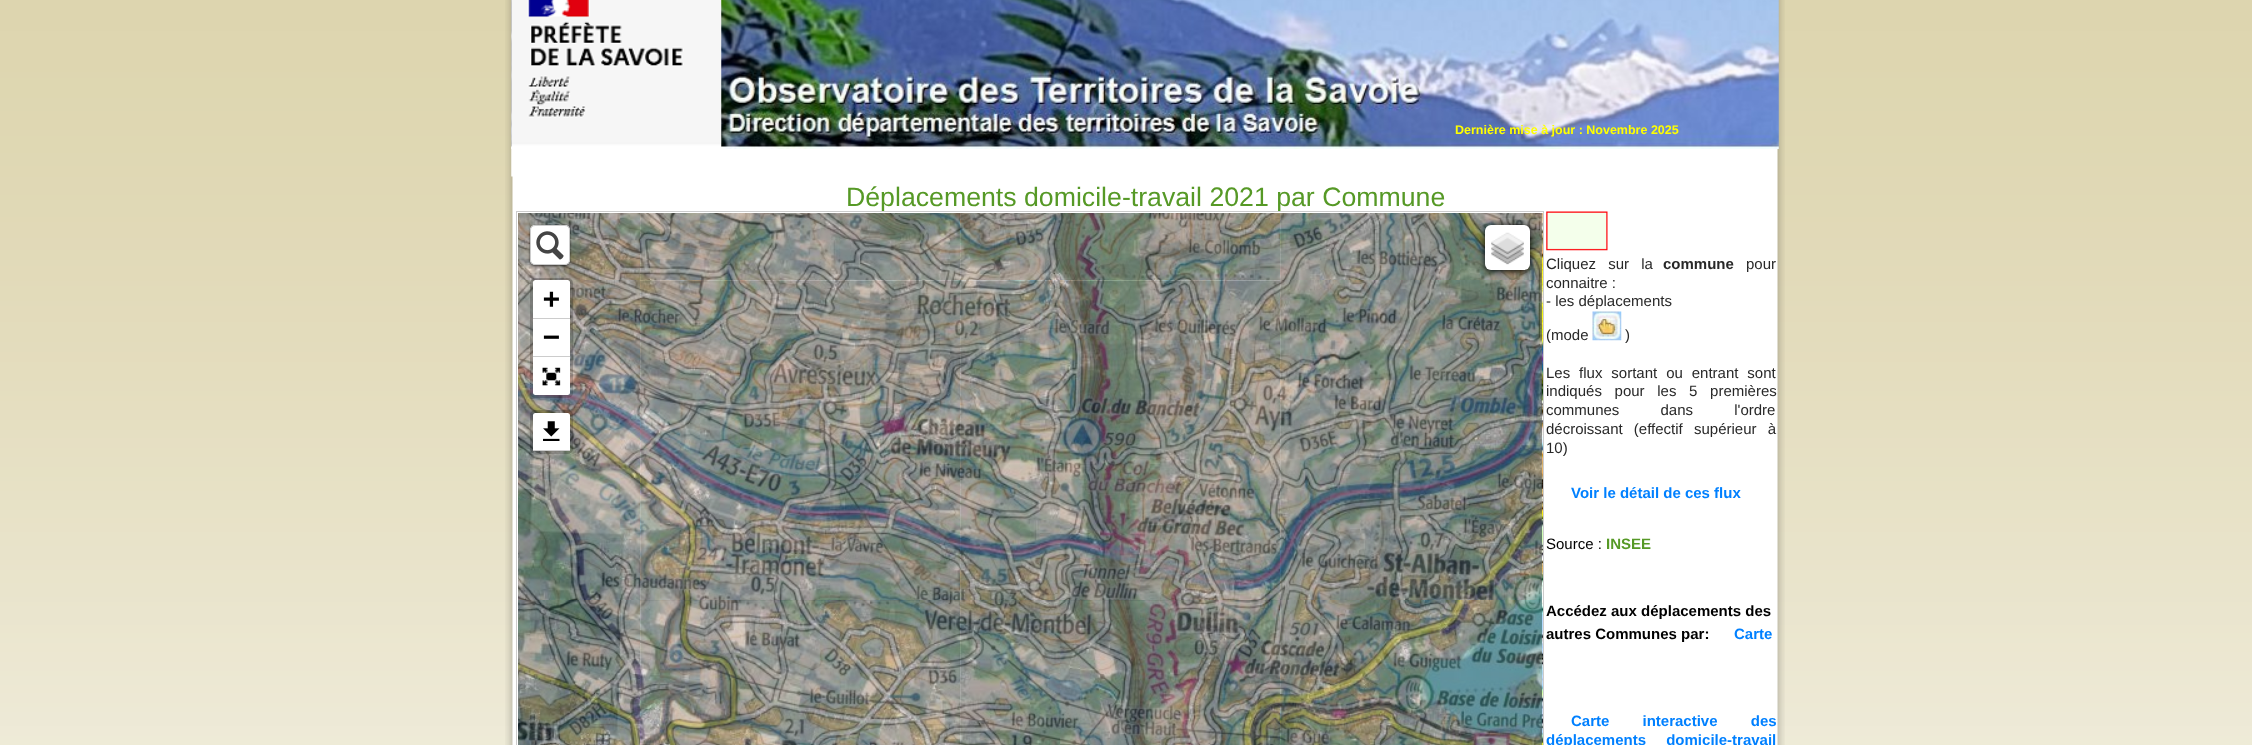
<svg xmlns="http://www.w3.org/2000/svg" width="2252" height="745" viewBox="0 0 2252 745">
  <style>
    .t1 { font: bold 12.5px Liberation Sans; fill: #ff0; }
    .t2 { font: 26.7px Liberation Sans; fill: #569926; }
    .t3 { font: bold 28px DejaVu Sans Mono; fill: #000; }
    .t4 { font: 15px Liberation Sans; fill: #282828; }
    .t5 { font: bold 15px Liberation Sans; fill: #282828; }
    .t6 { font: bold 15px Liberation Sans; fill: #0080ff; }
    .t7 { font: 15px Liberation Sans; fill: #000; }
    .t8 { font: bold 15px Liberation Sans; fill: #569926; }
    .t9 { font: bold 15px Liberation Sans; fill: #000; }
  </style>
  <rect width="100%" height="100%" fill="#fff"/>
  <image x="0" y="0" width="2252" height="745" href="images/1.png"/>
  <image x="505" y="0" width="1280" height="745" href="images/2.png"/>
  <image x="511" y="0" width="1268" height="149" href="images/3.png"/>
  <image x="511" y="0" width="211" height="177" href="images/4.png"/>
  <text x="1455" y="134" class="t1">Dernière mise à jour : Novembre 2025</text>
  <text x="846" y="206" class="t2">Déplacements domicile-travail 2021 par Commune</text>
  <rect x="516.5" y="211.5" width="1027" height="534" fill="none" stroke="#ccc"/>
  <image x="518" y="213" width="122" height="67" href="images/5.png"/>
  <image x="640" y="213" width="320" height="67" href="images/6.png"/>
  <image x="959" y="213" width="321" height="67" href="images/7.png"/>
  <image x="1279" y="213" width="264" height="67" href="images/8.png"/>
  <image x="518" y="280" width="122" height="320" href="images/9.png"/>
  <image x="640" y="280" width="320" height="321" href="images/10.png"/>
  <image x="959" y="280" width="321" height="321" href="images/11.png"/>
  <image x="1279" y="280" width="264" height="320" href="images/12.png"/>
  <image x="518" y="600" width="122" height="145" href="images/13.png"/>
  <image x="640" y="600" width="320" height="145" href="images/14.png"/>
  <image x="959" y="600" width="321" height="145" href="images/15.png"/>
  <image x="1279" y="600" width="264" height="145" href="images/16.png"/>
  <image x="639" y="213" width="321" height="67" href="images/18.png"/>
  <image x="518" y="213" width="122" height="67" href="images/17.png"/>
  <image x="960" y="213" width="320" height="67" href="images/19.png"/>
  <image x="1280" y="213" width="262" height="67" href="images/20.png"/>
  <image x="639" y="280" width="321" height="321" href="images/22.png"/>
  <image x="518" y="280" width="122" height="320" href="images/21.png"/>
  <image x="960" y="280" width="320" height="321" href="images/23.png"/>
  <image x="1280" y="280" width="262" height="320" href="images/24.png"/>
  <image x="639" y="600" width="321" height="145" href="images/26.png"/>
  <image x="518" y="600" width="122" height="145" href="images/25.png"/>
  <image x="959" y="600" width="321" height="145" href="images/27.png"/>
  <image x="1280" y="600" width="262" height="145" href="images/28.png"/>
  <rect x="1485" y="226" width="45" height="45" rx="6" fill="#000" filter="blur(3px)"/>
  <rect x="1485" y="225" width="45" height="45" rx="6" fill="#fff"/>
  <image x="1485" y="230" width="39" height="35" href="images/29.png"/>
  <rect x="530" y="226" width="40" height="40" rx="5" fill="#000000a6" filter="blur(1px)"/>
  <rect x="530" y="225" width="40" height="40" rx="5" fill="#fff"/>
  <image x="536" y="231" width="28" height="29" href="images/30.png"/>
  <rect x="530.5" y="225.5" width="39" height="39" rx="4.5" fill="none" stroke="#ccc"/>
  <rect x="531.5" y="279.5" width="40" height="117" rx="3.5" fill="none" stroke="#00000033" stroke-width="3"/>
  <path d="M535.5 280H567.5C569 280 570 281 570 282.5V319H533V282.5C533 281 534 280 535.5 280Z" fill="#fff"/>
  <rect x="533" y="318" width="37" height="1" fill="#ccc"/>
  <text x="543" y="308" class="t3">+</text>
  <rect x="533" y="319" width="37" height="39" fill="#fff"/>
  <rect x="533" y="356" width="37" height="1" fill="#ccc"/>
  <text x="543" y="346" class="t3">−</text>
  <path d="M533 358H570V392.5C570 394 569 395 567.5 395H535.5C534 395 533 394 533 392.5Z" fill="#fff"/>
  <image x="542" y="367" width="19" height="19" href="images/31.png"/>
  <rect x="531.5" y="411.5" width="40" height="41" rx="3.5" fill="none" stroke="#00000033" stroke-width="3"/>
  <path d="M535.5 413H567.5C569 413 570 414 570 415.5V451H533V415.5C533 414 534 413 535.5 413Z" fill="#fff"/>
  <image x="543" y="421" width="17" height="20" href="images/32.png"/>
  <rect x="533" y="450" width="37" height="1" fill="#ccc"/>
  <image x="1546" y="211" width="62" height="40" href="images/33.png"/>
  <text x="1546" y="269" word-spacing="8" class="t4">Cliquez sur la</text>
  <text x="1663" y="269" class="t5">commune</text>
  <text x="1746" y="269" class="t4">pour</text>
  <text x="1546" y="288" class="t4">connaitre :</text>
  <text x="1546" y="306" class="t4">- les déplacements</text>
  <text x="1546" y="340" class="t4">(mode</text>
  <image x="1592" y="311" width="30" height="30" href="images/34.png"/>
  <text x="1625" y="340" class="t4">)</text>
  <text x="1546" y="378" word-spacing="4.75" class="t4">Les flux sortant ou entrant sont</text>
  <text x="1546" y="396" word-spacing="8.5" class="t4">indiqués pour les 5 premières</text>
  <text x="1546" y="415" word-spacing="37" class="t4">communes dans l'ordre</text>
  <text x="1546" y="434" word-spacing="7" class="t4">décroissant (effectif supérieur à</text>
  <text x="1546" y="453" class="t4">10)</text>
  <text x="1571" y="498" class="t6">Voir le détail de ces flux</text>
  <text x="1546" y="549" class="t7">Source :</text>
  <text x="1606" y="549" class="t8">INSEE</text>
  <text x="1546" y="616" class="t9">Accédez aux déplacements des</text>
  <text x="1546" y="639" class="t9">autres Communes par:</text>
  <text x="1734" y="639" class="t6">Carte</text>
  <text x="1571" y="726" word-spacing="29" class="t6">Carte interactive des</text>
  <text x="1546" y="745" word-spacing="16" class="t6">déplacements domicile-travail</text>
</svg>
